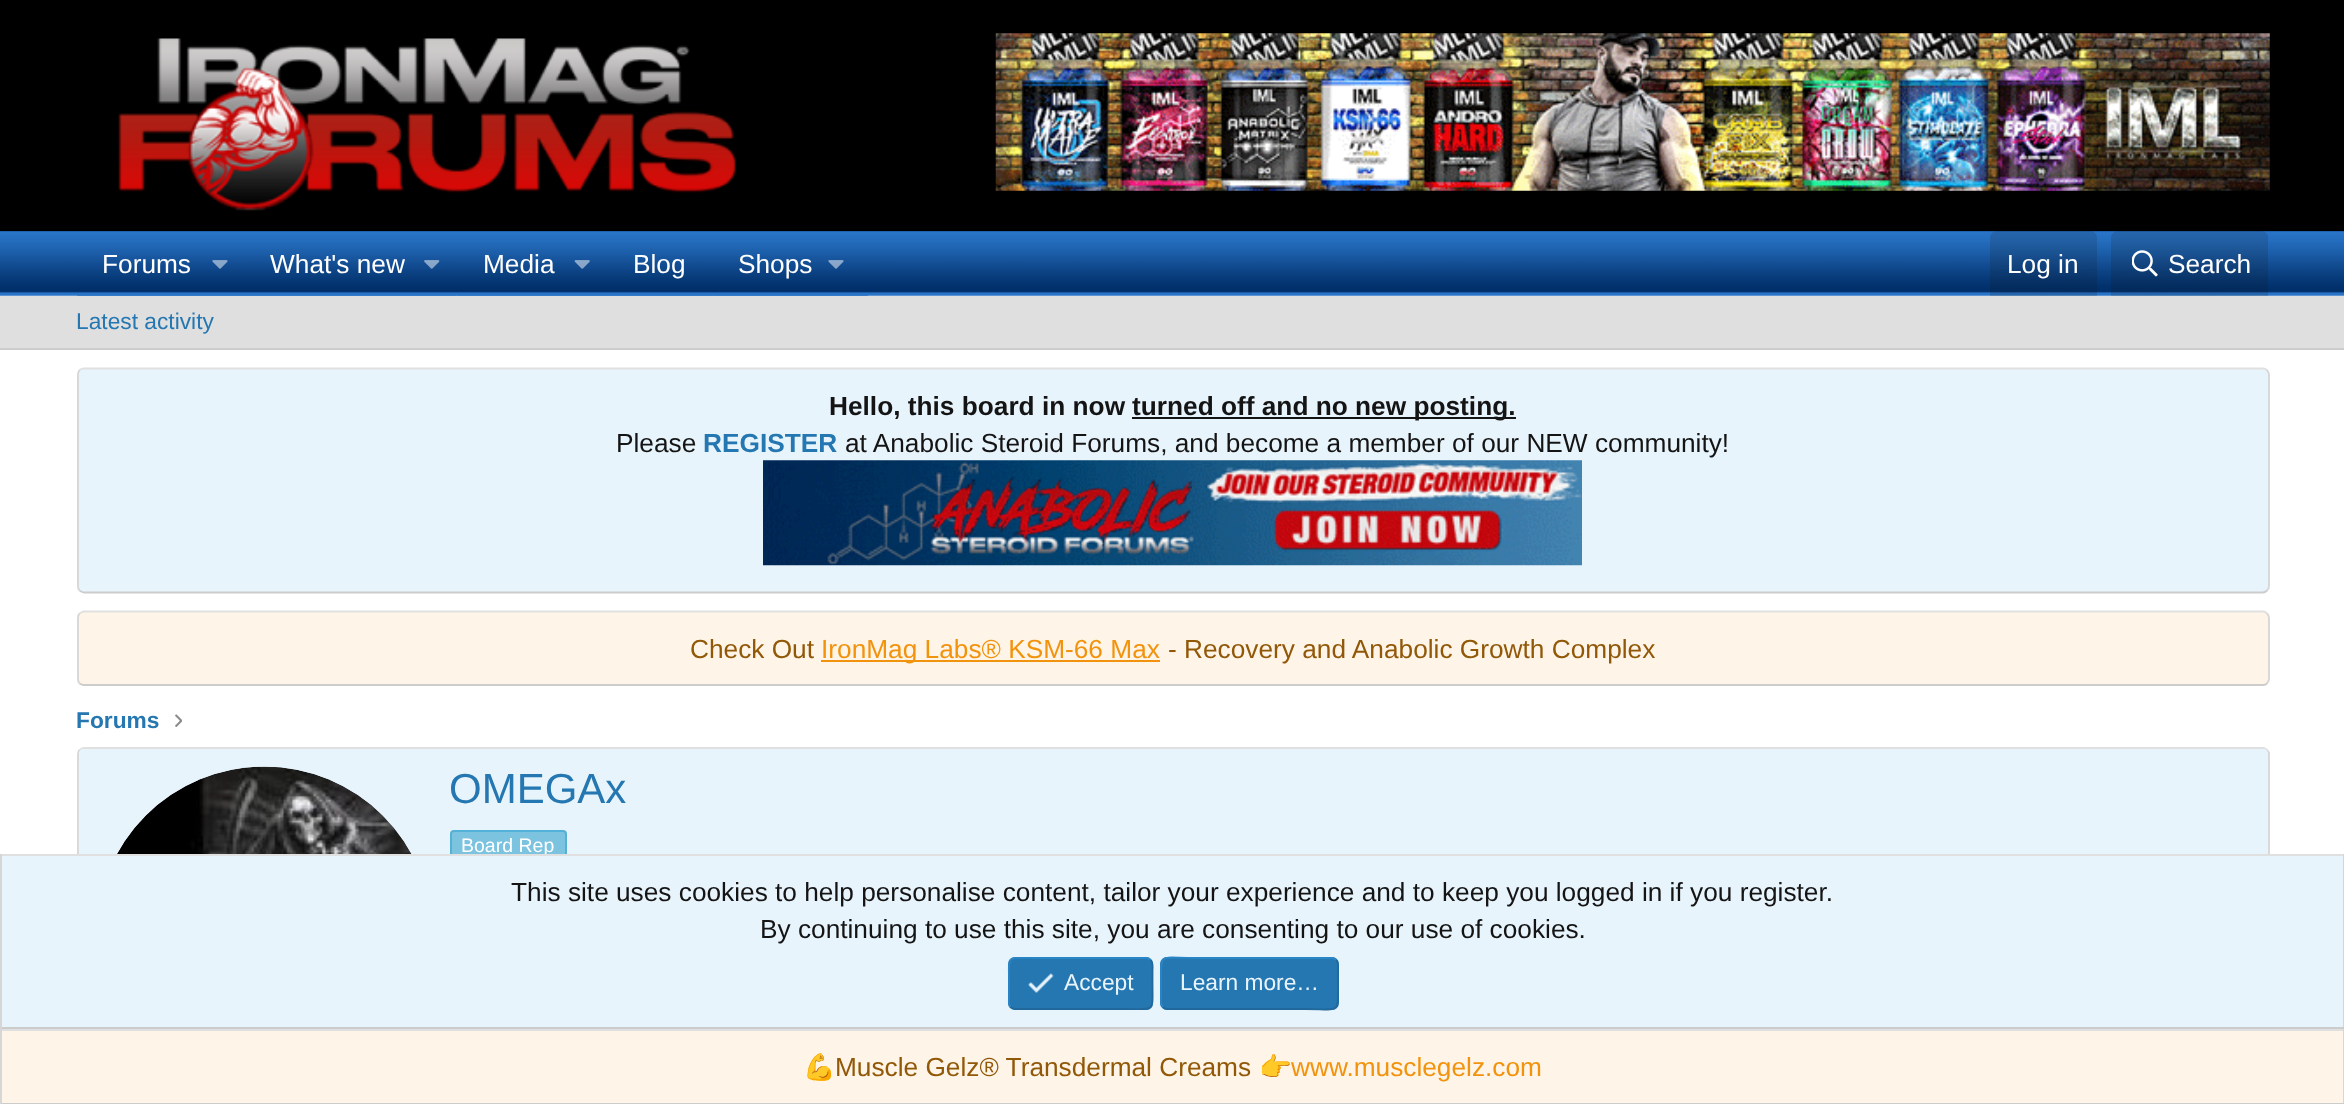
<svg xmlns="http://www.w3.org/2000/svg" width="2344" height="1104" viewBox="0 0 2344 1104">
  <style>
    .t1 { font: 26.25px Liberation Sans; fill: #fff; }
    .t2 { font: 22.75px Liberation Sans; fill: #2577b1; }
    .t3 { font: bold 26.25px Liberation Sans; fill: #141414; }
    .t4 { font: 26.25px Liberation Sans; fill: #141414; }
    .t5 { font: bold 26.25px Liberation Sans; fill: #2577b1; }
    .t6 { font: 26.25px Liberation Sans; fill: #915808; }
    .t7 { font: 26.25px Liberation Sans; fill: #f2930d; }
    .t8 { font: bold 22.75px Liberation Sans; fill: #2577b1; }
    .t9 { font: 42px Liberation Sans; fill: #2577b1; }
    .t10 { font: 19.5px Liberation Sans; fill: #fff; }
    .t11 { font: 22.75px Liberation Sans; fill: #e8f4fc; }
    .t12 { font: 26.25px Noto Color Emoji; fill: #915808; }
  </style>
  <rect width="100%" height="100%" fill="#fff"/>
  <rect x="0" y="0" width="2344" height="231" fill="#000"/>
  <image x="118" y="38" width="618" height="173" href="images/1.png"/>
  <image x="995" y="33" width="1275" height="158" href="images/2.png"/>
  <image x="0" y="231" width="2344" height="65" href="images/3.png"/>
  <image x="77" y="295" width="166" height="1" href="images/4.png"/>
  <text x="102" y="273" class="t1">Forums</text>
  <image x="212" y="260" width="16" height="9" href="images/5.png"/>
  <image x="243" y="295" width="214" height="1" href="images/6.png"/>
  <text x="270" y="273" class="t1">What's new</text>
  <image x="424" y="260" width="16" height="9" href="images/7.png"/>
  <image x="457" y="295" width="151" height="1" href="images/8.png"/>
  <text x="483" y="273" class="t1">Media</text>
  <image x="574" y="260" width="16" height="9" href="images/9.png"/>
  <image x="607" y="295" width="105" height="1" href="images/10.png"/>
  <text x="633" y="273" class="t1">Blog</text>
  <image x="712" y="295" width="156" height="1" href="images/11.png"/>
  <text x="738" y="273" class="t1">Shops</text>
  <image x="828" y="260" width="16" height="9" href="images/12.png"/>
  <path d="M1997 231H2090C2094 231 2097 234 2097 238V296H1990V238C1990 234 1993 231 1997 231Z" fill="#14141426"/>
  <text x="2007" y="273" class="t1">Log in</text>
  <path d="M2118 231H2261C2265 231 2268 234 2268 238V296H2111V238C2111 234 2114 231 2118 231Z" fill="#14141426"/>
  <image x="2132" y="250" width="26" height="27" href="images/13.png"/>
  <text x="2168" y="273" class="t1">Search</text>
  <rect x="0" y="296" width="2344" height="52" fill="#dfdfdf"/>
  <rect x="0" y="348" width="2344" height="2" fill="#ccc"/>
  <text x="76" y="329" class="t2">Latest activity</text>
  <rect x="77" y="368" width="2193" height="225" rx="7" fill="#e8f4fc"/>
  <path d="M79.5 370C81 369 82.5 368.5 84 368.5H2263C2264.5 368.5 2266 369 2267 370" fill="none" stroke="#e0e0e0" stroke-width="1.8"/>
  <path d="M2267 370C2268 371.5 2269 373 2269 374.5V586C2269 588 2268 589.5 2267 590.5" fill="none" stroke="#d6d6d6" stroke-width="1.8"/>
  <path d="M2267 590.5C2266 591.5 2264.5 592.5 2263 592.5H84C82.5 592.5 81 591.5 79.5 590.5" fill="none" stroke="#ccc" stroke-width="1.8"/>
  <path d="M79.5 590.5C78.5 589.5 78 588 78 586V374.5C78 373 78.5 371.5 79.5 370" fill="none" stroke="#d6d6d6" stroke-width="1.8"/>
  <text x="829" y="415" class="t3">Hello, this board in now</text>
  <rect x="1132" y="417" width="384" height="2" fill="#141414"/>
  <text x="1132" y="415" class="t3">turned off and no new posting.</text>
  <text x="616" y="452" class="t4">Please</text>
  <text x="703" y="452" class="t5">REGISTER</text>
  <text x="845" y="452" class="t4">at Anabolic Steroid Forums, and become a member of our NEW community!</text>
  <image x="763" y="460" width="819" height="106" href="images/14.png"/>
  <rect x="77" y="611" width="2193" height="75" rx="7" fill="#fef4e7"/>
  <path d="M79.5 613.5C81 612.5 82.5 611.5 84 611.5H2263C2264.5 611.5 2266 612.5 2267 613.5" fill="none" stroke="#e0e0e0" stroke-width="1.8"/>
  <path d="M2267 613.5C2268 614.5 2269 616 2269 618V679C2269 680.5 2268 682 2267 683.5" fill="none" stroke="#d6d6d6" stroke-width="1.8"/>
  <path d="M2267 683.5C2266 684.5 2264.5 685 2263 685H84C82.5 685 81 684.5 79.5 683.5" fill="none" stroke="#ccc" stroke-width="1.8"/>
  <path d="M79.5 683.5C78.5 682 78 680.5 78 679V618C78 616 78.5 614.5 79.5 613.5" fill="none" stroke="#d6d6d6" stroke-width="1.8"/>
  <text x="690" y="658" class="t6">Check Out</text>
  <rect x="821" y="660" width="339" height="2" fill="#f2930d"/>
  <text x="821" y="658" class="t7">IronMag Labs® KSM-66 Max</text>
  <text x="1168" y="658" class="t6">- Recovery and Anabolic Growth Complex</text>
  <text x="76" y="728" class="t8">Forums</text>
  <image x="175" y="714" width="7" height="13" href="images/15.png"/>
  <path d="M79.5 750C81 749 82.5 748 84 748H2263C2264.5 748 2266 749 2267 750" fill="none" stroke="#e0e0e0" stroke-width="1.8"/>
  <path d="M2267 750C2268 751 2269 752.5 2269 754V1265C2269 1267 2268 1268.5 2267 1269.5" fill="none" stroke="#d6d6d6" stroke-width="1.8"/>
  <path d="M79.5 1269.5C78.5 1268.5 78 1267 78 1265V754C78 752.5 78.5 751 79.5 750" fill="none" stroke="#d6d6d6" stroke-width="1.8"/>
  <path d="M84 749H2263C2266 749 2268 751 2268 754V1008H79V754C79 751 81 749 84 749Z" fill="#e8f4fc"/>
  <circle cx="264" cy="935" r="168" fill="#fff"/>
  <image x="117" y="766" width="295" height="88" href="images/16.png"/>
  <text x="449" y="803" class="t9">OMEGAx</text>
  <rect x="451" y="831" width="115" height="31" rx="3" fill="#7cc3e0" stroke="#53b0d6" stroke-width="2"/>
  <text x="461" y="852" class="t10">Board Rep</text>
  <rect x="2" y="856" width="2341" height="171" fill="#e8f4fc"/>
  <rect x="0" y="854" width="2344" height="2" fill="#e0e0e0"/>
  <rect x="2343" y="854" width="1" height="175" fill="#d6d6d6"/>
  <rect x="0" y="1027" width="2344" height="2" fill="#ccc"/>
  <rect x="0" y="854" width="2" height="175" fill="#d6d6d6"/>
  <text x="511" y="901" class="t4">This site uses cookies to help personalise content, tailor your experience and to keep you logged in if you register.</text>
  <text x="760" y="938" class="t4">By continuing to use this site, you are consenting to our use of cookies.</text>
  <rect x="1008" y="957" width="145" height="53" rx="7" fill="#2577b1"/>
  <path d="M1150.5 960C1153.5 962.5 1152.5 967.5 1152.5 970.5V983.5C1152.5 1013.5 1156 1009 1124.5 1009H1015C1013.5 1009 1012 1008 1010.5 1007" fill="none" stroke="#21699c" stroke-width="1.8"/>
  <path d="M1010.5 1007C1008 1004.5 1009 999.5 1009 996.5V983.5C1009 953.5 1005 958 1037 958H1146C1148 958 1149.5 959 1150.5 960" fill="none" stroke="#2985c6" stroke-width="1.8"/>
  <image x="1028" y="973" width="26" height="20" href="images/17.png"/>
  <text x="1064" y="990" class="t11">Accept</text>
  <rect x="1160" y="957" width="179" height="53" rx="7" fill="#2577b1"/>
  <path d="M1336 960C1339 962.5 1338 967.5 1338 970.5V983.5C1338 1015.5 1341 1009 1304.5 1009H1167C1165.5 1009 1164 1008 1163 1007" fill="none" stroke="#21699c" stroke-width="1.8"/>
  <path d="M1163 1007C1160 1004.5 1161 999.5 1161 996.5V983.5C1161 951.5 1158 958 1194.5 958H1332C1333.5 958 1335 959 1336 960" fill="none" stroke="#2985c6" stroke-width="1.8"/>
  <text x="1180" y="990" class="t11">Learn more…</text>
  <rect x="2" y="1031" width="2341" height="72" fill="#fef4e7"/>
  <rect x="0" y="1029" width="2344" height="2" fill="#e0e0e0"/>
  <rect x="2343" y="1029" width="1" height="75" fill="#d6d6d6"/>
  <rect x="0" y="1103" width="2344" height="1" fill="#ccc"/>
  <rect x="0" y="1029" width="2" height="75" fill="#d6d6d6"/>
  <text x="803" y="1076" class="t12">💪</text>
  <text x="835" y="1076" class="t6">Muscle Gelz® Transdermal Creams</text>
  <text x="1259" y="1076" class="t12">👉</text>
  <text x="1291" y="1076" class="t7">www.musclegelz.com</text>
</svg>
